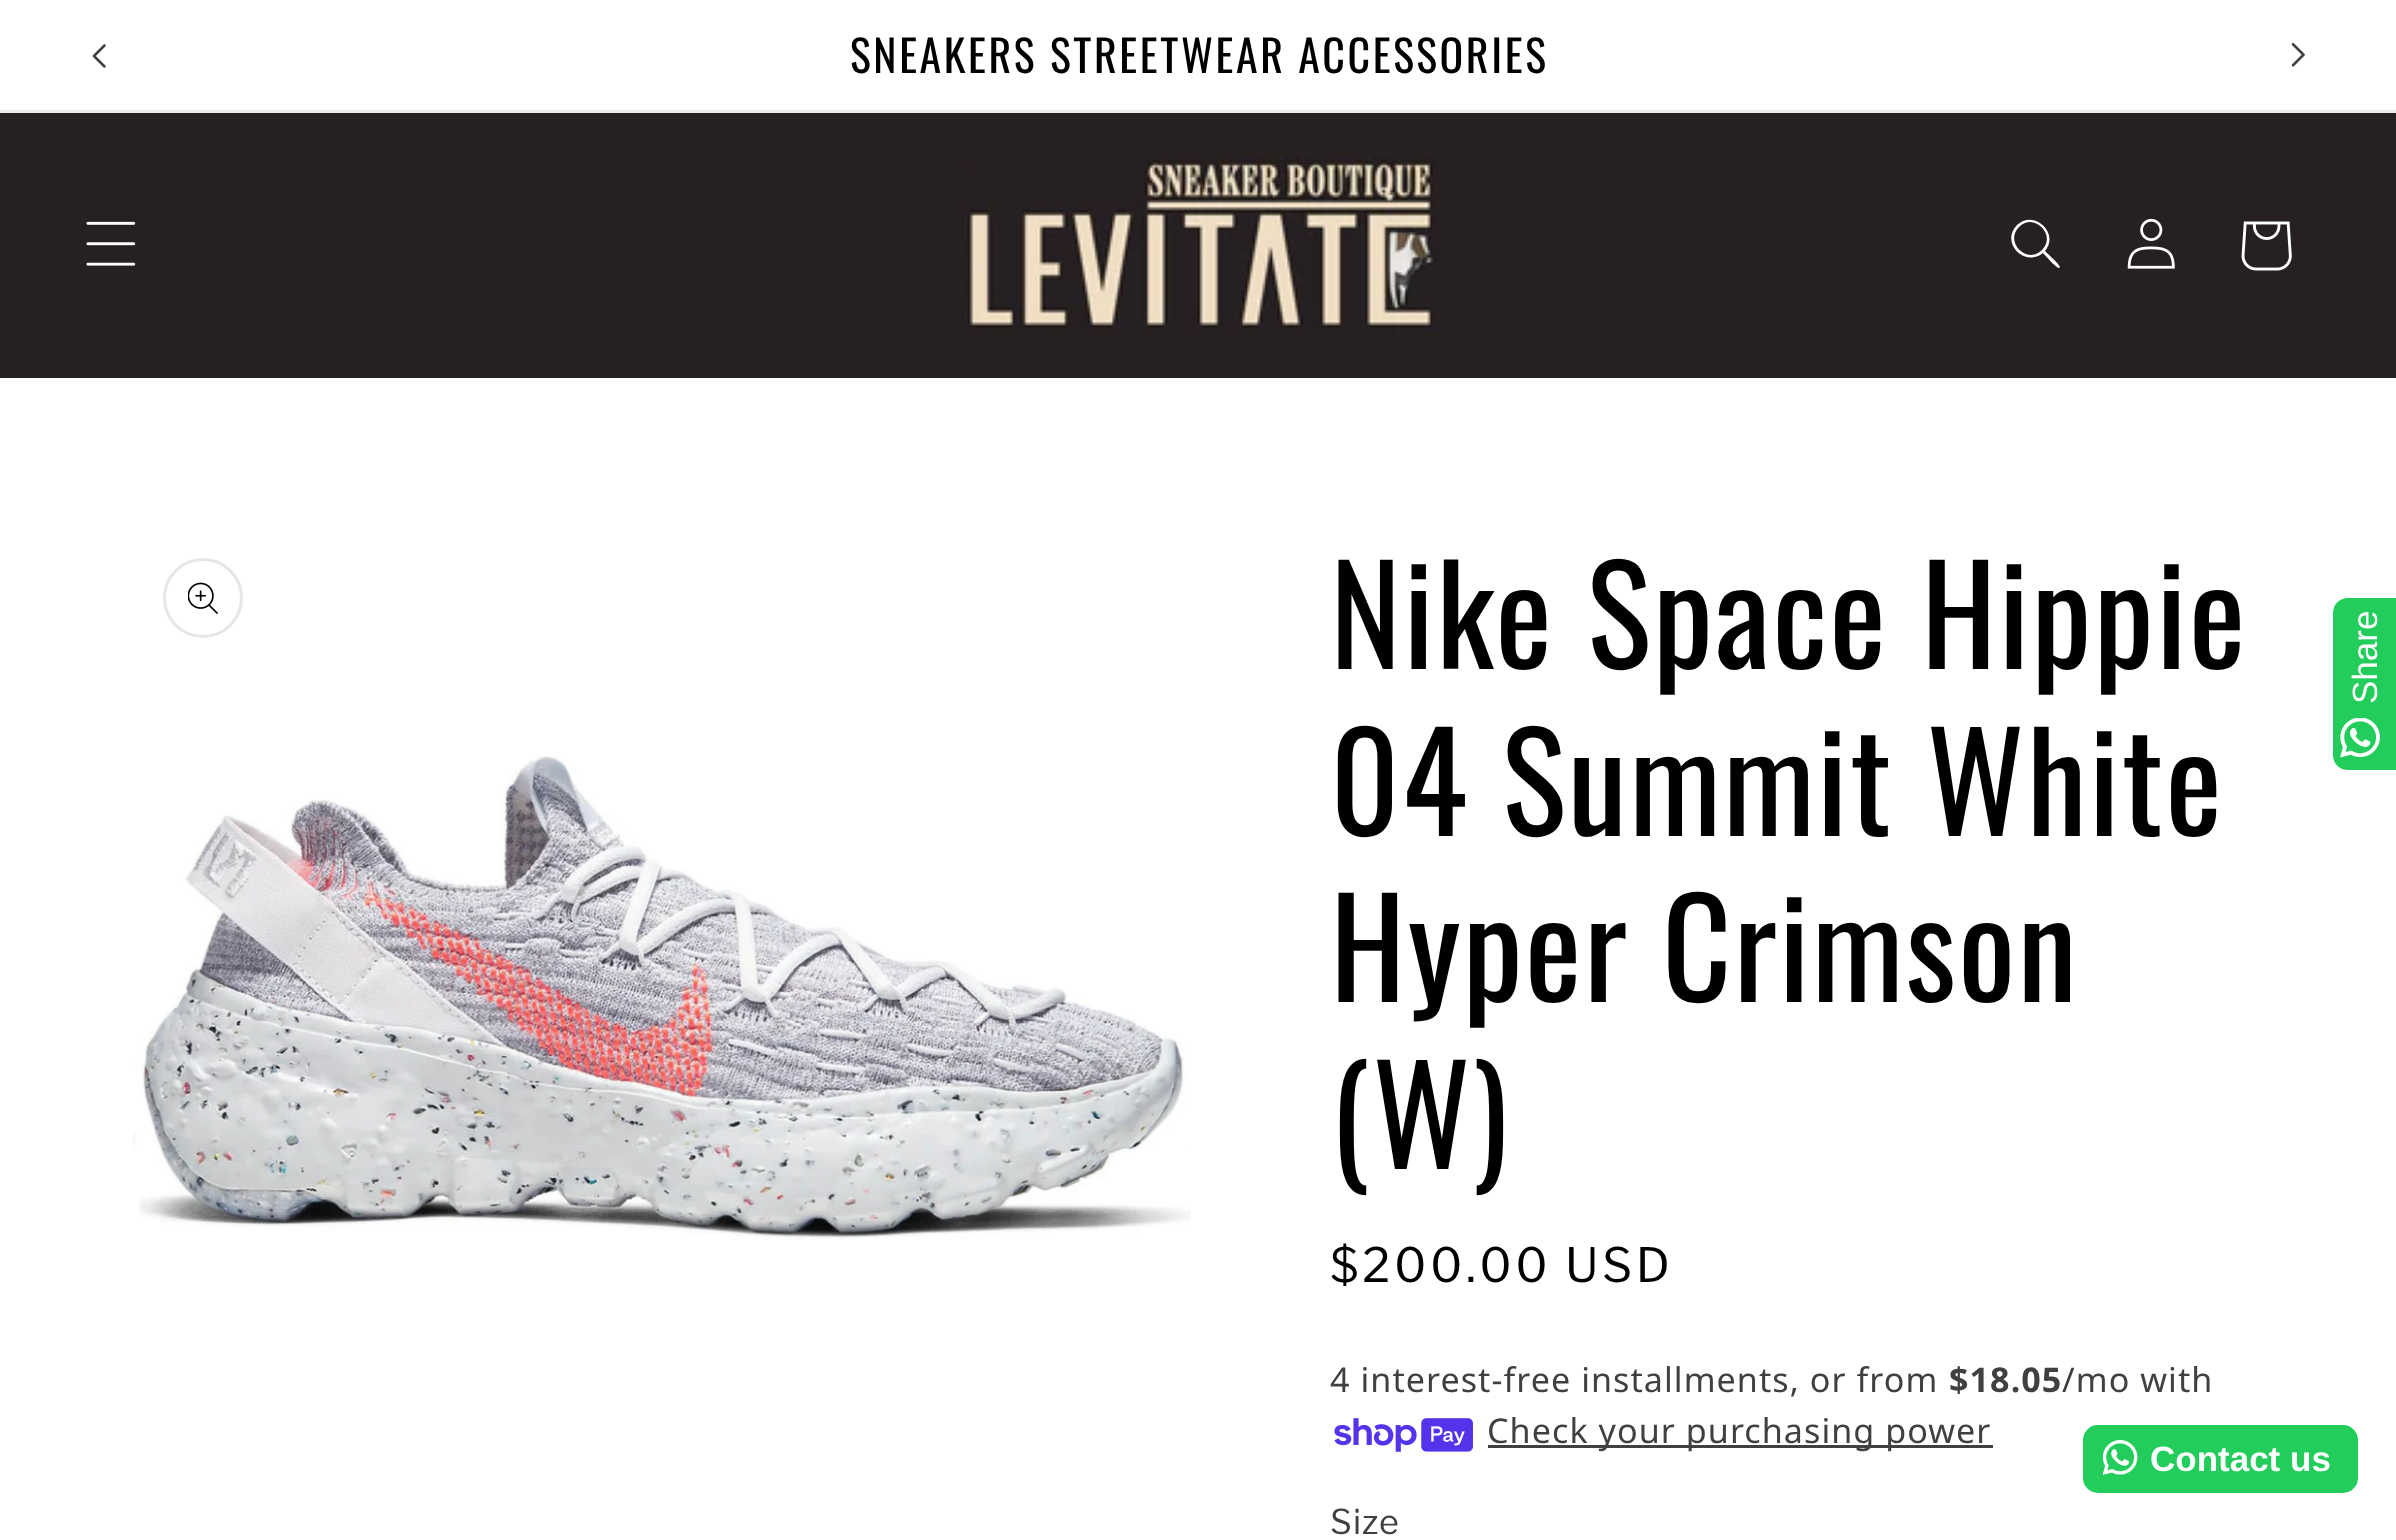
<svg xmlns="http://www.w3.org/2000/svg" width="2396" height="1540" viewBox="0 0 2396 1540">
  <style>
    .t1 { font: 43.9px Oswald; letter-spacing: 2.6px; fill: #000; }
    .t2 { font: 135px Oswald; letter-spacing: 2px; fill: #000; }
    .t3 { font: 47.25px Libre Franklin; letter-spacing: 3.5px; fill: #000; }
    .t4 { font: 34.1px Noto Sans; letter-spacing: 1.05px; fill: #404040; }
    .t5 { font: bold 34.1px Noto Sans; letter-spacing: 1.05px; fill: #404040; }
    .t6 { font: 34.1px Libre Franklin; letter-spacing: 1.05px; fill: #404040; }
    .t7 { font: 35px Liberation Sans; fill: #fff; }
    .t8 { font: bold 35px Liberation Sans; fill: #fff; }
  </style>
  <rect width="100%" height="100%" fill="#fff"/>
  <rect x="0" y="110" width="2396" height="3" fill="#ebebeb"/>
  <image x="92" y="44" width="14" height="24" href="images/1.png"/>
  <text x="850" y="73" class="t1">SNEAKERS STREETWEAR ACCESSORIES</text>
  <image x="2291" y="43" width="14" height="24" href="images/2.png"/>
  <rect x="0" y="113" width="2396" height="265" fill="#262020"/>
  <image x="86" y="221" width="50" height="45" href="images/3.png"/>
  <image x="963" y="157" width="475" height="176" href="images/4.png"/>
  <path d="M2042 250C2027 265 2004 242 2019 227C2034 212 2057 235 2042 250ZM2043 253C2024 268 2000 242 2017 225C2034 209 2060 233 2045 251C2047 253 2060 265 2060 267L2059 268C2057 269 2045 255 2043 253Z" fill="#fff" fill-rule="evenodd"/>
  <image x="2127" y="218" width="48" height="51" href="images/5.png"/>
  <image x="2241" y="221" width="51" height="50" href="images/6.png"/>
  <circle cx="203" cy="598" r="38.5" fill="none" stroke="#e6e6e6" stroke-width="3"/>
  <image x="188" y="582" width="30" height="32" href="images/7.png"/>
  <image x="133" y="756" width="1058" height="484" href="images/8.png"/>
  <text x="1330" y="669" class="t2">Nike Space Hippie</text>
  <text x="1330" y="836" class="t2">04 Summit White</text>
  <text x="1330" y="1002" class="t2">Hyper Crimson</text>
  <text x="1330" y="1169" class="t2">(W)</text>
  <text x="1330" y="1282" class="t3">$200.00 USD</text>
  <text x="1330" y="1392" class="t4">4 interest-free installments, or from</text>
  <text x="1949" y="1392" class="t5">$18.05</text>
  <text x="2062" y="1392" class="t4">/mo with</text>
  <image x="1334" y="1418" width="139" height="34" href="images/9.png"/>
  <rect x="1488" y="1445" width="505" height="3" fill="#404040"/>
  <text x="1487" y="1443" class="t4">Check your purchasing power</text>
  <text x="1330" y="1534" class="t6">Size</text>
  <path d="M2348 598H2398V770H2348C2339.5 770 2333 763.5 2333 755V613C2333 604.5 2339.5 598 2348 598Z" fill="#22cd5b"/>
  <text x="2377" y="704" transform="rotate(-90 2377 704)" class="t7">Share</text>
  <image x="2340" y="718" width="40" height="40" href="images/10.png"/>
  <rect x="2083" y="1425" width="275" height="68" rx="15" fill="#22cd5b"/>
  <image x="2103" y="1440" width="35" height="35" href="images/11.png"/>
  <text x="2150" y="1471" class="t8">Contact us</text>
</svg>
